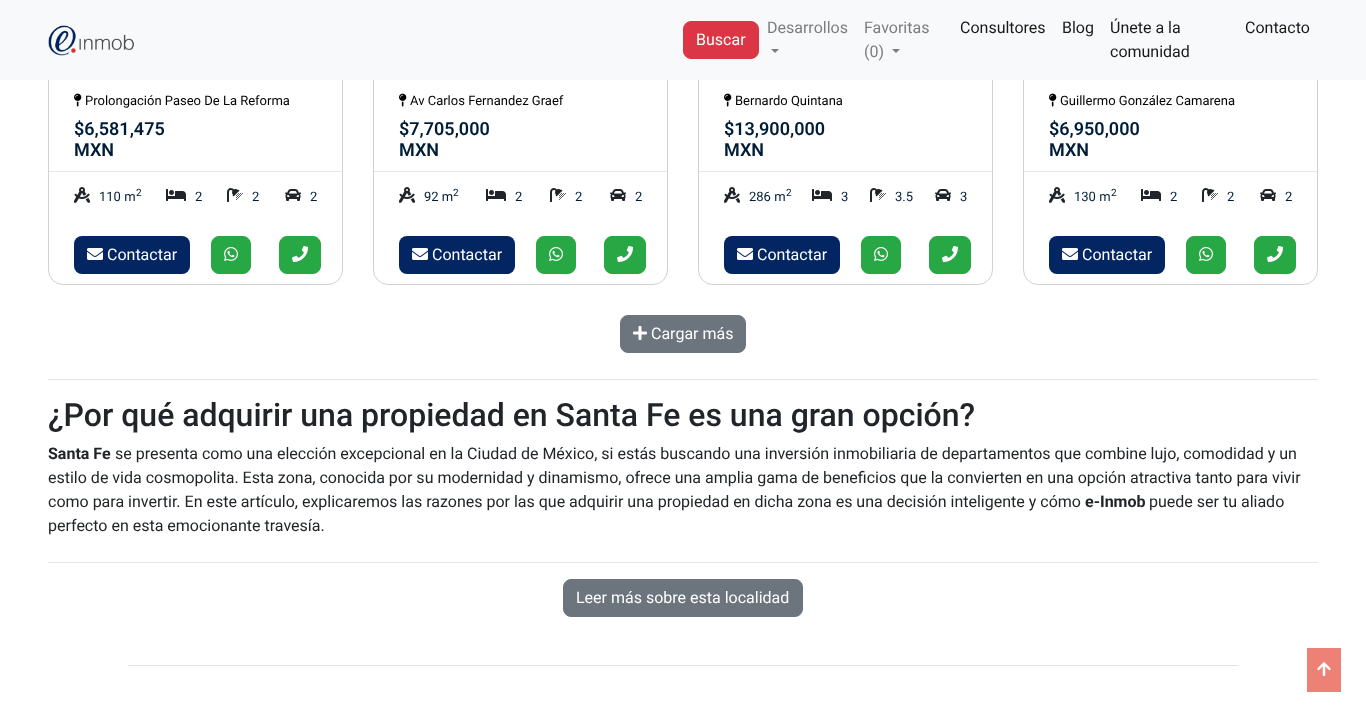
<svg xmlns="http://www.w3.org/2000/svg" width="1366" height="717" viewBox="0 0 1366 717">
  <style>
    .t1 { font: 16px Roboto; fill: #fff; }
    .t2 { font: 16px Roboto; fill: #7c7d7d; }
    .t3 { font: 16px Roboto; fill: #191919; }
    .t4 { font: 13px Roboto; fill: #000; }
    .t5 { font: 600 18px Roboto; fill: #001d38; }
    .t6 { font: 13px Roboto; fill: #001d38; }
    .t7 { font: 10px Roboto; fill: #001d38; }
    .t8 { font: 500 32px Roboto; fill: #212529; }
    .t9 { font: bold 16px Roboto; fill: #212529; }
    .t10 { font: 16px Roboto; fill: #212529; }
  </style>
  <rect width="100%" height="100%" fill="#fff"/>
  <rect x="48.5" y="-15.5" width="294" height="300" rx="14.5" fill="none" stroke="#d1d1d1"/>
  <rect x="373.5" y="-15.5" width="294" height="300" rx="14.5" fill="none" stroke="#d1d1d1"/>
  <rect x="698.5" y="-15.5" width="294" height="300" rx="14.5" fill="none" stroke="#d1d1d1"/>
  <rect x="1023.5" y="-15.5" width="294" height="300" rx="14.5" fill="none" stroke="#d1d1d1"/>
  <rect x="0" y="0" width="1366" height="80" fill="#f8f9fa"/>
  <image x="48" y="25" width="86" height="31" href="images/1.png"/>
  <rect x="683.5" y="21.5" width="75" height="37" rx="7.5" fill="#dc3545" stroke="#dc3545"/>
  <text x="696" y="45" class="t1">Buscar</text>
  <text x="767" y="33" class="t2">Desarrollos</text>
  <path d="M771 49H779L775 53Z" fill="#7c7d7d"/>
  <text x="864" y="33" class="t2">Favoritas</text>
  <text x="864" y="57" class="t2">(0)</text>
  <path d="M892 49H900L896 53Z" fill="#7c7d7d"/>
  <text x="960" y="33" class="t3">Consultores</text>
  <text x="1062" y="33" class="t3">Blog</text>
  <text x="1110" y="33" class="t3">Únete a la</text>
  <text x="1110" y="57" class="t3">comunidad</text>
  <text x="1245" y="33" class="t3">Contacto</text>
  <rect x="49" y="171" width="293" height="1" fill="#e8e8e8"/>
  <image x="74" y="93" width="8" height="14" href="images/2.png"/>
  <text x="85" y="105" class="t4">Prolongación Paseo De La Reforma</text>
  <text x="74" y="135" class="t5">$6,581,475</text>
  <text x="74" y="156" class="t5">MXN</text>
  <image x="74" y="187" width="16" height="16" href="images/3.png"/>
  <text x="99" y="201" class="t6">110 m</text>
  <text x="136" y="196" class="t7">2</text>
  <image x="166" y="189" width="20" height="12" href="images/4.png"/>
  <text x="195" y="201" class="t6">2</text>
  <image x="227" y="188" width="16" height="14" href="images/5.png"/>
  <text x="252" y="201" class="t6">2</text>
  <image x="285" y="189" width="16" height="12" href="images/6.png"/>
  <text x="310" y="201" class="t6">2</text>
  <rect x="74" y="236" width="116" height="38" rx="8" fill="#032662"/>
  <image x="87" y="248" width="16" height="12" href="images/7.png"/>
  <text x="107" y="260" class="t1">Contactar</text>
  <rect x="211.5" y="236.5" width="39" height="37" rx="7.5" fill="#28a745" stroke="#28a745"/>
  <image x="224" y="247" width="14" height="14" href="images/8.png"/>
  <rect x="279.5" y="236.5" width="41" height="37" rx="7.5" fill="#28a745" stroke="#28a745"/>
  <image x="292" y="246" width="16" height="16" href="images/9.png"/>
  <rect x="374" y="171" width="293" height="1" fill="#e8e8e8"/>
  <image x="399" y="93" width="8" height="14" href="images/2.png"/>
  <text x="410" y="105" class="t4">Av Carlos Fernandez Graef</text>
  <text x="399" y="135" class="t5">$7,705,000</text>
  <text x="399" y="156" class="t5">MXN</text>
  <image x="399" y="187" width="16" height="16" href="images/3.png"/>
  <text x="424" y="201" class="t6">92 m</text>
  <text x="453" y="196" class="t7">2</text>
  <image x="486" y="189" width="20" height="12" href="images/4.png"/>
  <text x="515" y="201" class="t6">2</text>
  <image x="550" y="188" width="16" height="14" href="images/5.png"/>
  <text x="575" y="201" class="t6">2</text>
  <image x="610" y="189" width="16" height="12" href="images/6.png"/>
  <text x="635" y="201" class="t6">2</text>
  <rect x="399" y="236" width="116" height="38" rx="8" fill="#032662"/>
  <image x="412" y="248" width="16" height="12" href="images/7.png"/>
  <text x="432" y="260" class="t1">Contactar</text>
  <rect x="536.5" y="236.5" width="39" height="37" rx="7.5" fill="#28a745" stroke="#28a745"/>
  <image x="549" y="247" width="14" height="14" href="images/8.png"/>
  <rect x="604.5" y="236.5" width="41" height="37" rx="7.5" fill="#28a745" stroke="#28a745"/>
  <image x="617" y="246" width="16" height="16" href="images/9.png"/>
  <rect x="699" y="171" width="293" height="1" fill="#e8e8e8"/>
  <image x="724" y="93" width="8" height="14" href="images/2.png"/>
  <text x="735" y="105" class="t4">Bernardo Quintana</text>
  <text x="724" y="135" class="t5">$13,900,000</text>
  <text x="724" y="156" class="t5">MXN</text>
  <image x="724" y="187" width="16" height="16" href="images/3.png"/>
  <text x="749" y="201" class="t6">286 m</text>
  <text x="786" y="196" class="t7">2</text>
  <image x="812" y="189" width="20" height="12" href="images/4.png"/>
  <text x="841" y="201" class="t6">3</text>
  <image x="870" y="188" width="16" height="14" href="images/5.png"/>
  <text x="895" y="201" class="t6">3.5</text>
  <image x="935" y="189" width="16" height="12" href="images/6.png"/>
  <text x="960" y="201" class="t6">3</text>
  <rect x="724" y="236" width="116" height="38" rx="8" fill="#032662"/>
  <image x="737" y="248" width="16" height="12" href="images/7.png"/>
  <text x="757" y="260" class="t1">Contactar</text>
  <rect x="861.5" y="236.5" width="39" height="37" rx="7.5" fill="#28a745" stroke="#28a745"/>
  <image x="874" y="247" width="14" height="14" href="images/8.png"/>
  <rect x="929.5" y="236.5" width="41" height="37" rx="7.5" fill="#28a745" stroke="#28a745"/>
  <image x="942" y="246" width="16" height="16" href="images/9.png"/>
  <rect x="1024" y="171" width="293" height="1" fill="#e8e8e8"/>
  <image x="1049" y="93" width="8" height="14" href="images/2.png"/>
  <text x="1060" y="105" class="t4">Guillermo González Camarena</text>
  <text x="1049" y="135" class="t5">$6,950,000</text>
  <text x="1049" y="156" class="t5">MXN</text>
  <image x="1049" y="187" width="16" height="16" href="images/3.png"/>
  <text x="1074" y="201" class="t6">130 m</text>
  <text x="1111" y="196" class="t7">2</text>
  <image x="1141" y="189" width="20" height="12" href="images/4.png"/>
  <text x="1170" y="201" class="t6">2</text>
  <image x="1202" y="188" width="16" height="14" href="images/5.png"/>
  <text x="1227" y="201" class="t6">2</text>
  <image x="1260" y="189" width="16" height="12" href="images/6.png"/>
  <text x="1285" y="201" class="t6">2</text>
  <rect x="1049" y="236" width="116" height="38" rx="8" fill="#032662"/>
  <image x="1062" y="248" width="16" height="12" href="images/7.png"/>
  <text x="1082" y="260" class="t1">Contactar</text>
  <rect x="1186.5" y="236.5" width="39" height="37" rx="7.5" fill="#28a745" stroke="#28a745"/>
  <image x="1199" y="247" width="14" height="14" href="images/8.png"/>
  <rect x="1254.5" y="236.5" width="41" height="37" rx="7.5" fill="#28a745" stroke="#28a745"/>
  <image x="1267" y="246" width="16" height="16" href="images/9.png"/>
  <rect x="620.5" y="315.5" width="125" height="37" rx="7.5" fill="#6c757d" stroke="#6c757d"/>
  <image x="633" y="326" width="14" height="14" href="images/10.png"/>
  <text x="651" y="339" class="t1">Cargar más</text>
  <rect x="48" y="379" width="1270" height="1" fill="#e6e6e6"/>
  <text x="48" y="426" class="t8">¿Por qué adquirir una propiedad en Santa Fe es una gran opción?</text>
  <text x="48" y="459" class="t9">Santa Fe</text>
  <text x="115" y="459" class="t10">se presenta como una elección excepcional en la Ciudad de México, si estás buscando una inversión inmobiliaria de departamentos que combine lujo, comodidad y un</text>
  <text x="48" y="483" class="t10">estilo de vida cosmopolita. Esta zona, conocida por su modernidad y dinamismo, ofrece una amplia gama de beneficios que la convierten en una opción atractiva tanto para vivir</text>
  <text x="48" y="507" class="t10">como para invertir. En este artículo, explicaremos las razones por las que adquirir una propiedad en dicha zona es una decisión inteligente y cómo</text>
  <text x="1085" y="507" class="t9">e-Inmob</text>
  <text x="1149" y="507" class="t10">puede ser tu aliado</text>
  <text x="48" y="531" class="t10">perfecto en esta emocionante travesía.</text>
  <rect x="48" y="562" width="1270" height="1" fill="#e6e6e6"/>
  <rect x="563.5" y="579.5" width="239" height="37" rx="7.5" fill="#6c757d" stroke="#6c757d"/>
  <text x="576" y="603" class="t1">Leer más sobre esta localidad</text>
  <rect x="128" y="665" width="1110" height="1" fill="#dee2e6"/>
  <rect x="1307" y="648" width="34" height="44" fill="#ed8176"/>
  <image x="1317" y="662" width="14" height="14" href="images/11.png"/>
</svg>
